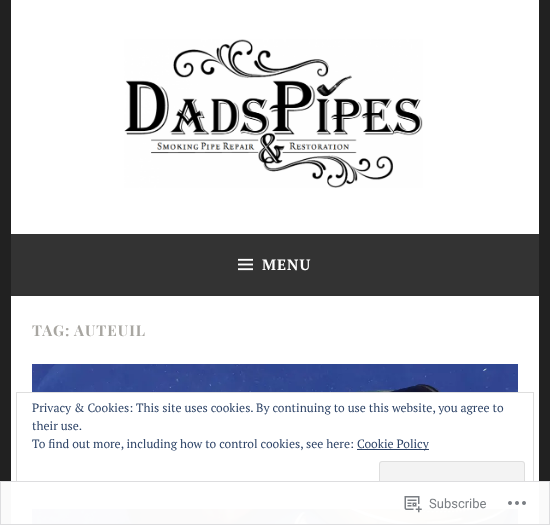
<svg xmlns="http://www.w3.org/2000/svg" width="550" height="525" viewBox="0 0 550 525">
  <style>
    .t1 { font: bold 15px PT Serif; letter-spacing: 1px; fill: #fff; }
    .t2 { font: bold 15px Playfair Display; letter-spacing: 1px; fill: #a8a6a1; }
    .t3 { font: 12px PT Serif; fill: #2e4467; }
    .t4 { font: 13px Roboto; fill: #7b7f84; }
  </style>
  <rect width="100%" height="100%" fill="#212121"/>
  <rect x="11" y="0" width="528" height="234" fill="#fff"/>
  <image x="124" y="39" width="299" height="149" href="images/1.png"/>
  <rect x="11" y="234" width="528" height="60" fill="#333"/>
  <rect x="11" y="294" width="528" height="2" fill="#313131"/>
  <image x="238" y="258" width="15" height="13" href="images/2.png"/>
  <text x="262" y="270" class="t1">MENU</text>
  <rect x="11" y="296" width="528" height="229" fill="#fff"/>
  <text x="32" y="336" class="t2">TAG:</text>
  <text x="74" y="336" class="t2">AUTEUIL</text>
  <image x="32" y="364" width="486" height="161" href="images/3.png"/>
  <rect x="32" y="393" width="486" height="115" fill="#fff"/>
  <rect x="16.5" y="392.5" width="517" height="116" fill="none" stroke="#dedede"/>
  <text x="32" y="412" class="t3">Privacy &amp; Cookies: This site uses cookies. By continuing to use this website, you agree to</text>
  <text x="32" y="430" class="t3">their use.</text>
  <text x="32" y="448" class="t3">To find out more, including how to control cookies, see here:</text>
  <rect x="357" y="449" width="72" height="1" fill="#2e4467"/>
  <text x="357" y="448" class="t3">Cookie Policy</text>
  <rect x="379" y="461" width="146" height="39" rx="3" fill="#f3f3f3"/>
  <path d="M380 495C380 497 380 499 382 499H523C524 498 524 496 524 495C524 496 523 497 522 497H382C381 497 380 496 380 495Z" fill="#dbdbdb"/>
  <rect x="379.5" y="461.5" width="145" height="38" rx="2.5" fill="none" stroke="#dedede"/>
  <rect x="0" y="481" width="550" height="44" fill="#fffffffa"/>
  <rect x="0.5" y="481.5" width="549" height="43" fill="none" stroke="#dcdcdefa"/>
  <image x="404" y="496" width="18" height="17" href="images/4.png"/>
  <text x="429" y="508" class="t4">Subscribe</text>
  <image x="508" y="501" width="18" height="4" href="images/5.png"/>
</svg>
